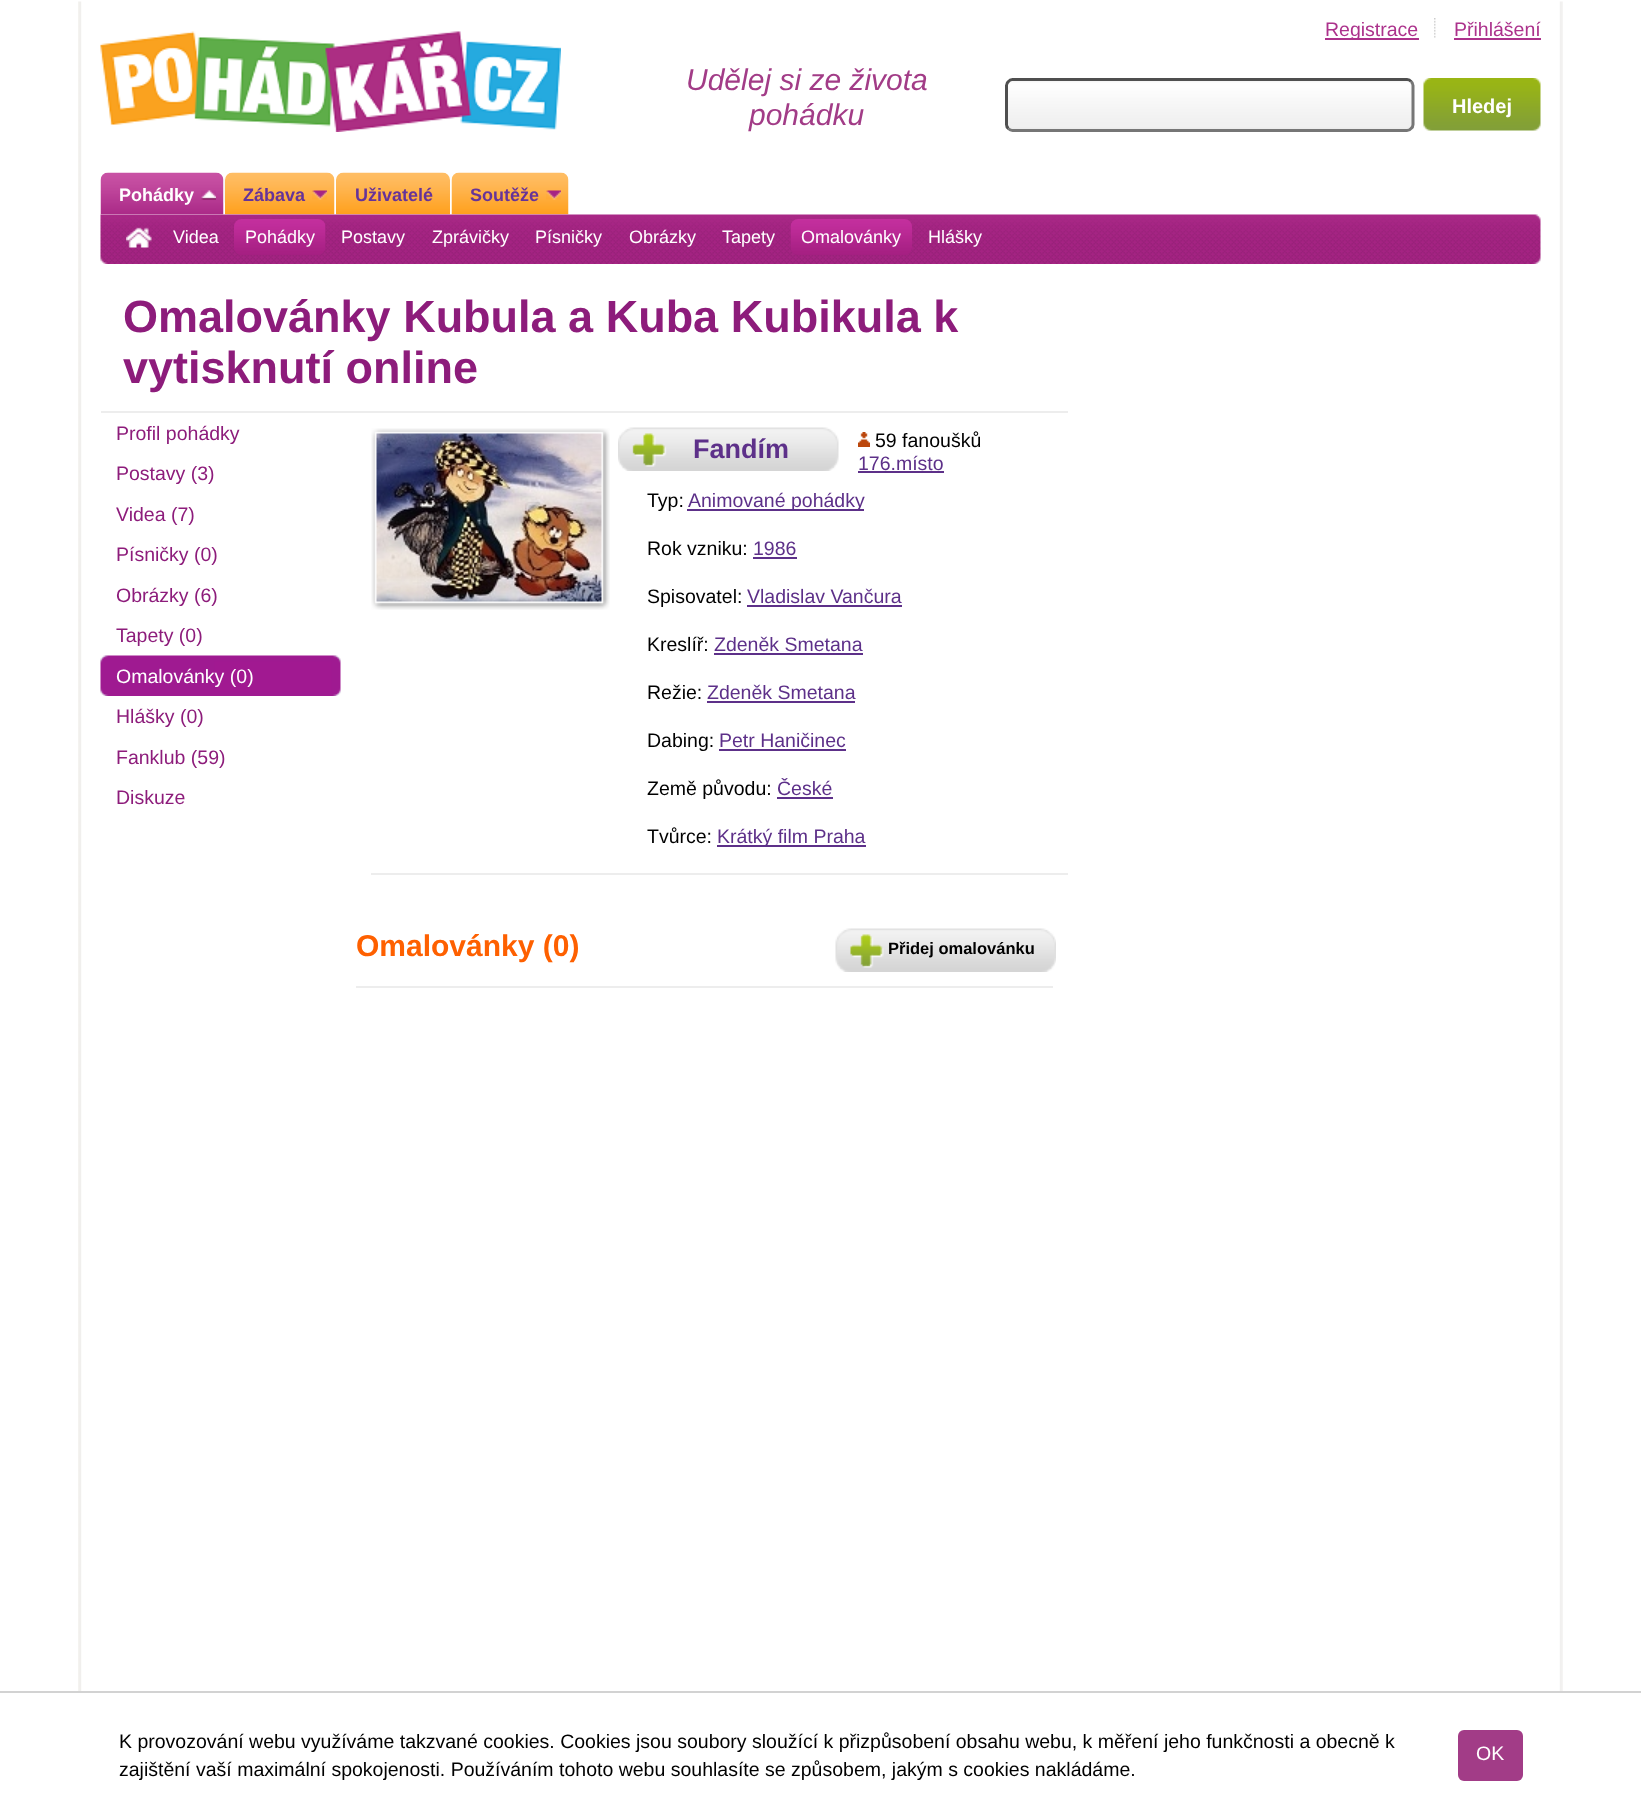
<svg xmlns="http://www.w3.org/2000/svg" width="1641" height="1820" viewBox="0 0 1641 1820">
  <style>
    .t1 { font: italic 30px Liberation Sans; fill: #a23c87; }
    .t2 { font: 19.5px Liberation Sans; fill: #ac328c; }
    .t3 { font: bold 20px Liberation Sans; fill: #fff; }
    .t4 { font: bold 18px Liberation Sans; fill: #fff; }
    .t5 { font: bold 18px Liberation Sans; fill: #639; }
    .t6 { font: 18px Liberation Sans; fill: #fff; }
    .t7 { font: bold 45px Liberation Sans; fill: #8d1c7b; }
    .t8 { font: 19.5px Liberation Sans; fill: #8d1c7b; }
    .t9 { font: 19.5px Liberation Sans; fill: #fff; }
    .t10 { font: bold 27px Liberation Sans; fill: #5d3089; }
    .t11 { font: 19.5px Liberation Sans; fill: #000; }
    .t12 { font: 19.5px Liberation Sans; fill: #5d3089; }
    .t13 { font: bold 30px Liberation Sans; fill: #fe6000; }
    .t14 { font: bold 16.5px Liberation Sans; fill: #000; }
  </style>
  <rect width="100%" height="100%" fill="#fff"/>
  <image x="78" y="1" width="1485" height="1690" href="images/1.png"/>
  <image x="100" y="31" width="461" height="101" href="images/2.png"/>
  <text x="686" y="90" class="t1">Udělej si ze života</text>
  <text x="749" y="125" class="t1">pohádku</text>
  <rect x="1325" y="38" width="94" height="2" fill="#ac328c"/>
  <text x="1325" y="36" class="t2">Registrace</text>
  <image x="1434" y="18" width="2" height="20" href="images/3.png"/>
  <text x="1454" y="36" class="t2">Přihlášení</text>
  <rect x="1454" y="38" width="87" height="2" fill="#ac328c"/>
  <image x="1005" y="81" width="410" height="48" href="images/4.png"/>
  <path d="M1411 81.5C1412.5 82.5 1413 84 1413 85.5V124.5C1413 126 1412.5 127.5 1411 128.5C1410 130 1408.5 130.5 1407 130.5H1012.5C1011 130.5 1009.5 130 1008.5 128.5" fill="none" stroke="#767676" stroke-width="3"/>
  <path d="M1008.5 128.5C1007 127.5 1006.5 126 1006.5 124.5V85.5C1006.5 84 1007 82.5 1008.5 81.5C1009.5 80 1011 79.5 1012.5 79.5H1407C1408.5 79.5 1410 80 1411 81.5" fill="none" stroke="#4f4f4f" stroke-width="3"/>
  <image x="1423" y="78" width="118" height="53" href="images/5.png"/>
  <text x="1452" y="113" class="t3">Hledej</text>
  <image x="100" y="172" width="124" height="43" href="images/6.png"/>
  <text x="119" y="201" class="t4">Pohádky</text>
  <image x="201" y="190" width="15" height="10" href="images/7.png"/>
  <image x="223" y="178" width="2" height="25" href="images/8.png"/>
  <image x="225" y="172" width="110" height="43" href="images/9.png"/>
  <text x="243" y="201" class="t5">Zábava</text>
  <image x="312" y="190" width="15" height="10" href="images/10.png"/>
  <image x="336" y="172" width="114" height="43" href="images/11.png"/>
  <text x="355" y="201" class="t5">Uživatelé</text>
  <image x="451" y="172" width="118" height="43" href="images/12.png"/>
  <text x="470" y="201" class="t5">Soutěže</text>
  <image x="546" y="190" width="15" height="10" href="images/13.png"/>
  <image x="100" y="214" width="1441" height="50" href="images/14.png"/>
  <image x="126" y="227" width="26" height="21" href="images/15.png"/>
  <text x="173" y="243" class="t6">Videa</text>
  <image x="234" y="219" width="92" height="36" href="images/16.png"/>
  <image x="790" y="219" width="122" height="36" href="images/17.png"/>
  <text x="245" y="243" class="t6">Pohádky</text>
  <text x="341" y="243" class="t6">Postavy</text>
  <text x="432" y="243" class="t6">Zprávičky</text>
  <text x="535" y="243" class="t6">Písničky</text>
  <text x="629" y="243" class="t6">Obrázky</text>
  <text x="722" y="243" class="t6">Tapety</text>
  <text x="801" y="243" class="t6">Omalovánky</text>
  <text x="928" y="243" class="t6">Hlášky</text>
  <rect x="101" y="411" width="967" height="2" fill="#ededed"/>
  <text x="123" y="332" class="t7">Omalovánky Kubula a Kuba Kubikula k</text>
  <text x="123" y="383" class="t7">vytisknutí online</text>
  <text x="116" y="440" class="t8">Profil pohádky</text>
  <text x="116" y="480" class="t8">Postavy (3)</text>
  <text x="116" y="521" class="t8">Videa (7)</text>
  <text x="116" y="561" class="t8">Písničky (0)</text>
  <text x="116" y="602" class="t8">Obrázky (6)</text>
  <text x="116" y="642" class="t8">Tapety (0)</text>
  <image x="100" y="655" width="241" height="41" href="images/18.png"/>
  <text x="116" y="683" class="t9">Omalovánky (0)</text>
  <text x="116" y="723" class="t8">Hlášky (0)</text>
  <text x="116" y="764" class="t8">Fanklub (59)</text>
  <text x="116" y="804" class="t8">Diskuze</text>
  <image x="371" y="428" width="239" height="182" href="images/19.png"/>
  <image x="376" y="433" width="226" height="169" href="images/20.png"/>
  <image x="618" y="427" width="221" height="44" href="images/21.png"/>
  <text x="693" y="458" class="t10">Fandím</text>
  <image x="858" y="432" width="12" height="15" href="images/22.png"/>
  <text x="875" y="447" class="t11">59 fanoušků</text>
  <text x="858" y="470" class="t12">176.místo</text>
  <rect x="858" y="471" width="86" height="2" fill="#5d3089"/>
  <text x="647" y="507" class="t11">Typ:</text>
  <rect x="687" y="509" width="177" height="2" fill="#5d3089"/>
  <text x="688" y="507" class="t12">Animované pohádky</text>
  <text x="647" y="555" class="t11">Rok vzniku:</text>
  <text x="753" y="555" class="t12">1986</text>
  <rect x="753" y="557" width="44" height="2" fill="#5d3089"/>
  <text x="647" y="603" class="t11">Spisovatel:</text>
  <text x="747" y="603" class="t12">Vladislav Vančura</text>
  <rect x="747" y="605" width="155" height="2" fill="#5d3089"/>
  <text x="647" y="651" class="t11">Kreslíř:</text>
  <text x="714" y="651" class="t12">Zdeněk Smetana</text>
  <rect x="714" y="653" width="149" height="2" fill="#5d3089"/>
  <text x="647" y="699" class="t11">Režie:</text>
  <text x="707" y="699" class="t12">Zdeněk Smetana</text>
  <rect x="707" y="701" width="148" height="2" fill="#5d3089"/>
  <text x="647" y="747" class="t11">Dabing:</text>
  <text x="719" y="747" class="t12">Petr Haničinec</text>
  <rect x="719" y="749" width="127" height="2" fill="#5d3089"/>
  <text x="647" y="795" class="t11">Země původu:</text>
  <text x="777" y="795" class="t12">České</text>
  <rect x="777" y="797" width="56" height="2" fill="#5d3089"/>
  <text x="647" y="843" class="t11">Tvůrce:</text>
  <rect x="717" y="845" width="149" height="2" fill="#5d3089"/>
  <text x="717" y="843" class="t12">Krátký film Praha</text>
  <rect x="371" y="873" width="697" height="2" fill="#ededed"/>
  <text x="356" y="956" class="t13">Omalovánky (0)</text>
  <image x="835" y="928" width="221" height="44" href="images/23.png"/>
  <text x="888" y="954" class="t14">Přidej omalovánku</text>
  <rect x="356" y="986" width="697" height="2" fill="#ededed"/>
  <rect x="0" y="1691" width="1641" height="2" fill="#d2d2d2"/>
  <text x="119" y="1748" class="t11">K provozování webu využíváme takzvané cookies. Cookies jsou soubory sloužící k přizpůsobení obsahu webu, k měření jeho funkčnosti a obecně k</text>
  <rect x="1458" y="1730" width="65" height="51" rx="6" fill="#a23c87"/>
  <text x="1476" y="1760" class="t9">OK</text>
  <text x="119" y="1776" class="t11">zajištění vaší maximální spokojenosti. Používáním tohoto webu souhlasíte se způsobem, jakým s cookies nakládáme.</text>
</svg>
